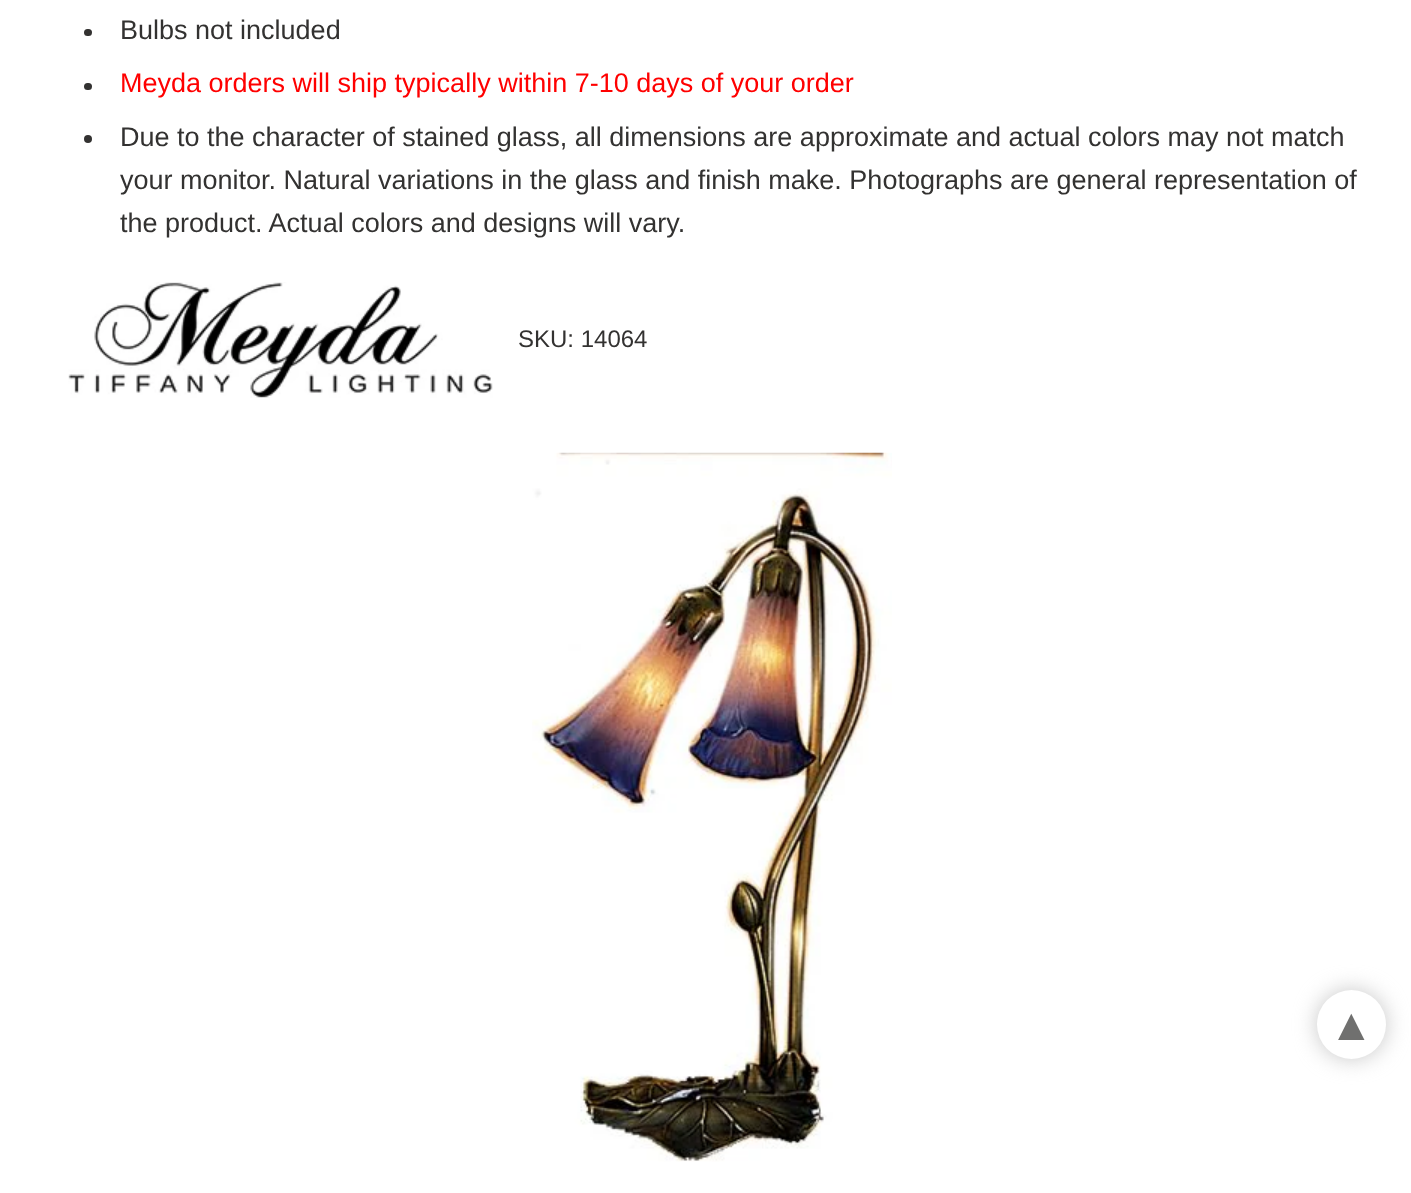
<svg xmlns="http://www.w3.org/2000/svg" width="1411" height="1193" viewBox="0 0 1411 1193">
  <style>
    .t1 { font: 27px Liberation Sans; fill: #333231; }
    .t2 { font: 27px Liberation Sans; fill: #f00; }
    .t3 { font: 24px Liberation Sans; fill: #333231; }
    .t4 { font: 45px Liberation Sans; fill: #70706f; }
  </style>
  <rect width="100%" height="100%" fill="#fff"/>
  <rect x="84" y="29" width="8" height="7" rx="3.5" fill="#333231"/>
  <text x="120" y="39" class="t1">Bulbs not included</text>
  <rect x="84" y="83" width="8" height="7" rx="3.5" fill="#333231"/>
  <text x="120" y="92" class="t2">Meyda orders will ship typically within 7-10 days of your order</text>
  <circle cx="88" cy="139" r="4" fill="#333231"/>
  <text x="120" y="146" class="t1">Due to the character of stained glass, all dimensions are approximate and actual colors may not match</text>
  <text x="120" y="189" class="t1">your monitor. Natural variations in the glass and finish make. Photographs are general representation of</text>
  <text x="120" y="232" class="t1">the product. Actual colors and designs will vary.</text>
  <image x="68" y="282" width="425" height="116" href="images/1.png"/>
  <text x="518" y="347" class="t3">SKU: 14064</text>
  <image x="532" y="452" width="360" height="710" href="images/2.png"/>
  <rect x="1317" y="990" width="69" height="69" rx="34.5" fill="#c6c6c6" filter="blur(11px)"/>
  <circle cx="1351.5" cy="1024.5" r="34.5" fill="#fff"/>
  <text x="1329" y="1040" class="t4">▲</text>
</svg>
